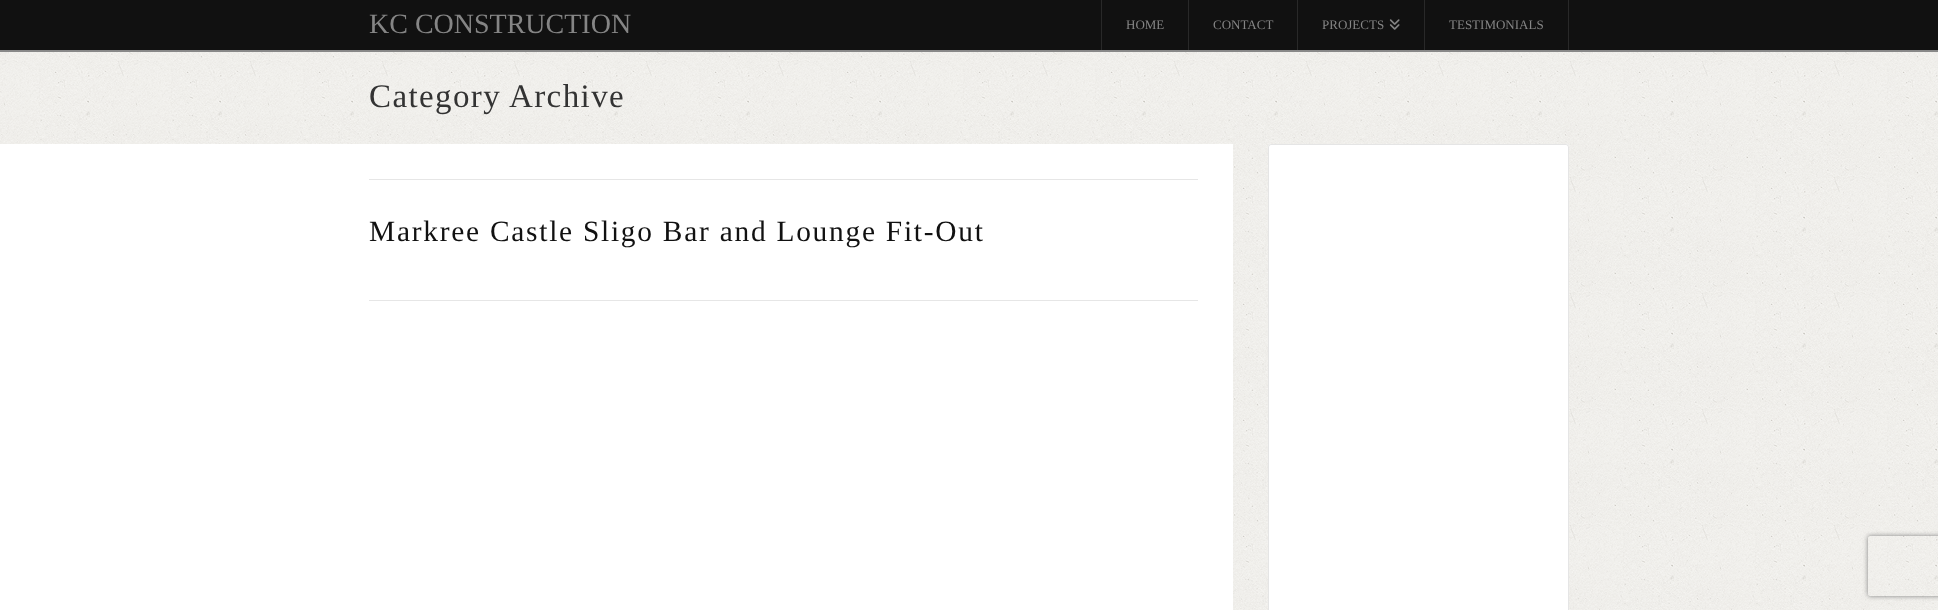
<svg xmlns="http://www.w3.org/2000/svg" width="1938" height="610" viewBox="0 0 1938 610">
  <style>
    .t1 { font: 28px Liberation Serif; fill: #858585; }
    .t2 { font: 13px Liberation Serif; fill: #858585; }
    .t3 { font: 33px Liberation Serif; letter-spacing: 1.4px; fill: #333; }
    .t4 { font: 29.4px Liberation Serif; letter-spacing: 1.75px; fill: #111; }
  </style>
  <defs>
    <clipPath id="clip1"><path d="M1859 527H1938V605H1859ZM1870 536H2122C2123 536 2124 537 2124 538V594C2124 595 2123 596 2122 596H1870C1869 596 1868 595 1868 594V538C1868 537 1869 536 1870 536Z" clip-rule="evenodd"/></clipPath>
  </defs>
  <rect width="100%" height="100%" fill="#fff"/>
  <image x="0" y="52" width="1938" height="558" href="images/1.png"/>
  <rect x="0" y="0" width="1938" height="50" fill="#111"/>
  <rect x="0" y="50" width="1938" height="2" fill="#888"/>
  <text x="369" y="33" class="t1">KC CONSTRUCTION</text>
  <rect x="1188" y="0" width="1" height="50" fill="#292929"/>
  <rect x="1101" y="0" width="1" height="50" fill="#292929"/>
  <text x="1126" y="29" class="t2">HOME</text>
  <rect x="1297" y="0" width="1" height="50" fill="#292929"/>
  <text x="1213" y="29" class="t2">CONTACT</text>
  <rect x="1424" y="0" width="1" height="50" fill="#292929"/>
  <text x="1322" y="29" class="t2">PROJECTS</text>
  <image x="1389" y="19" width="11" height="11" href="images/2.png"/>
  <rect x="1568" y="0" width="1" height="50" fill="#292929"/>
  <text x="1449" y="29" class="t2">TESTIMONIALS</text>
  <text x="369" y="107" class="t3">Category Archive</text>
  <rect x="0" y="144" width="1233" height="466" fill="#fff"/>
  <rect x="369" y="179" width="829" height="1" fill="#e6e6e6"/>
  <rect x="369" y="300" width="829" height="1" fill="#e6e6e6"/>
  <text x="369" y="241" class="t4">Markree Castle Sligo Bar and Lounge Fit-Out</text>
  <rect x="1268" y="144" width="301" height="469" rx="3" fill="#fff"/>
  <rect x="1268.5" y="144.5" width="300" height="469" rx="2.5" fill="none" stroke="#0000001a"/>
  <g clip-path="url(#clip1)">
    <rect x="1868" y="536" width="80" height="60" rx="2" fill="#808080" filter="blur(2.5px)"/>
  </g>
</svg>
